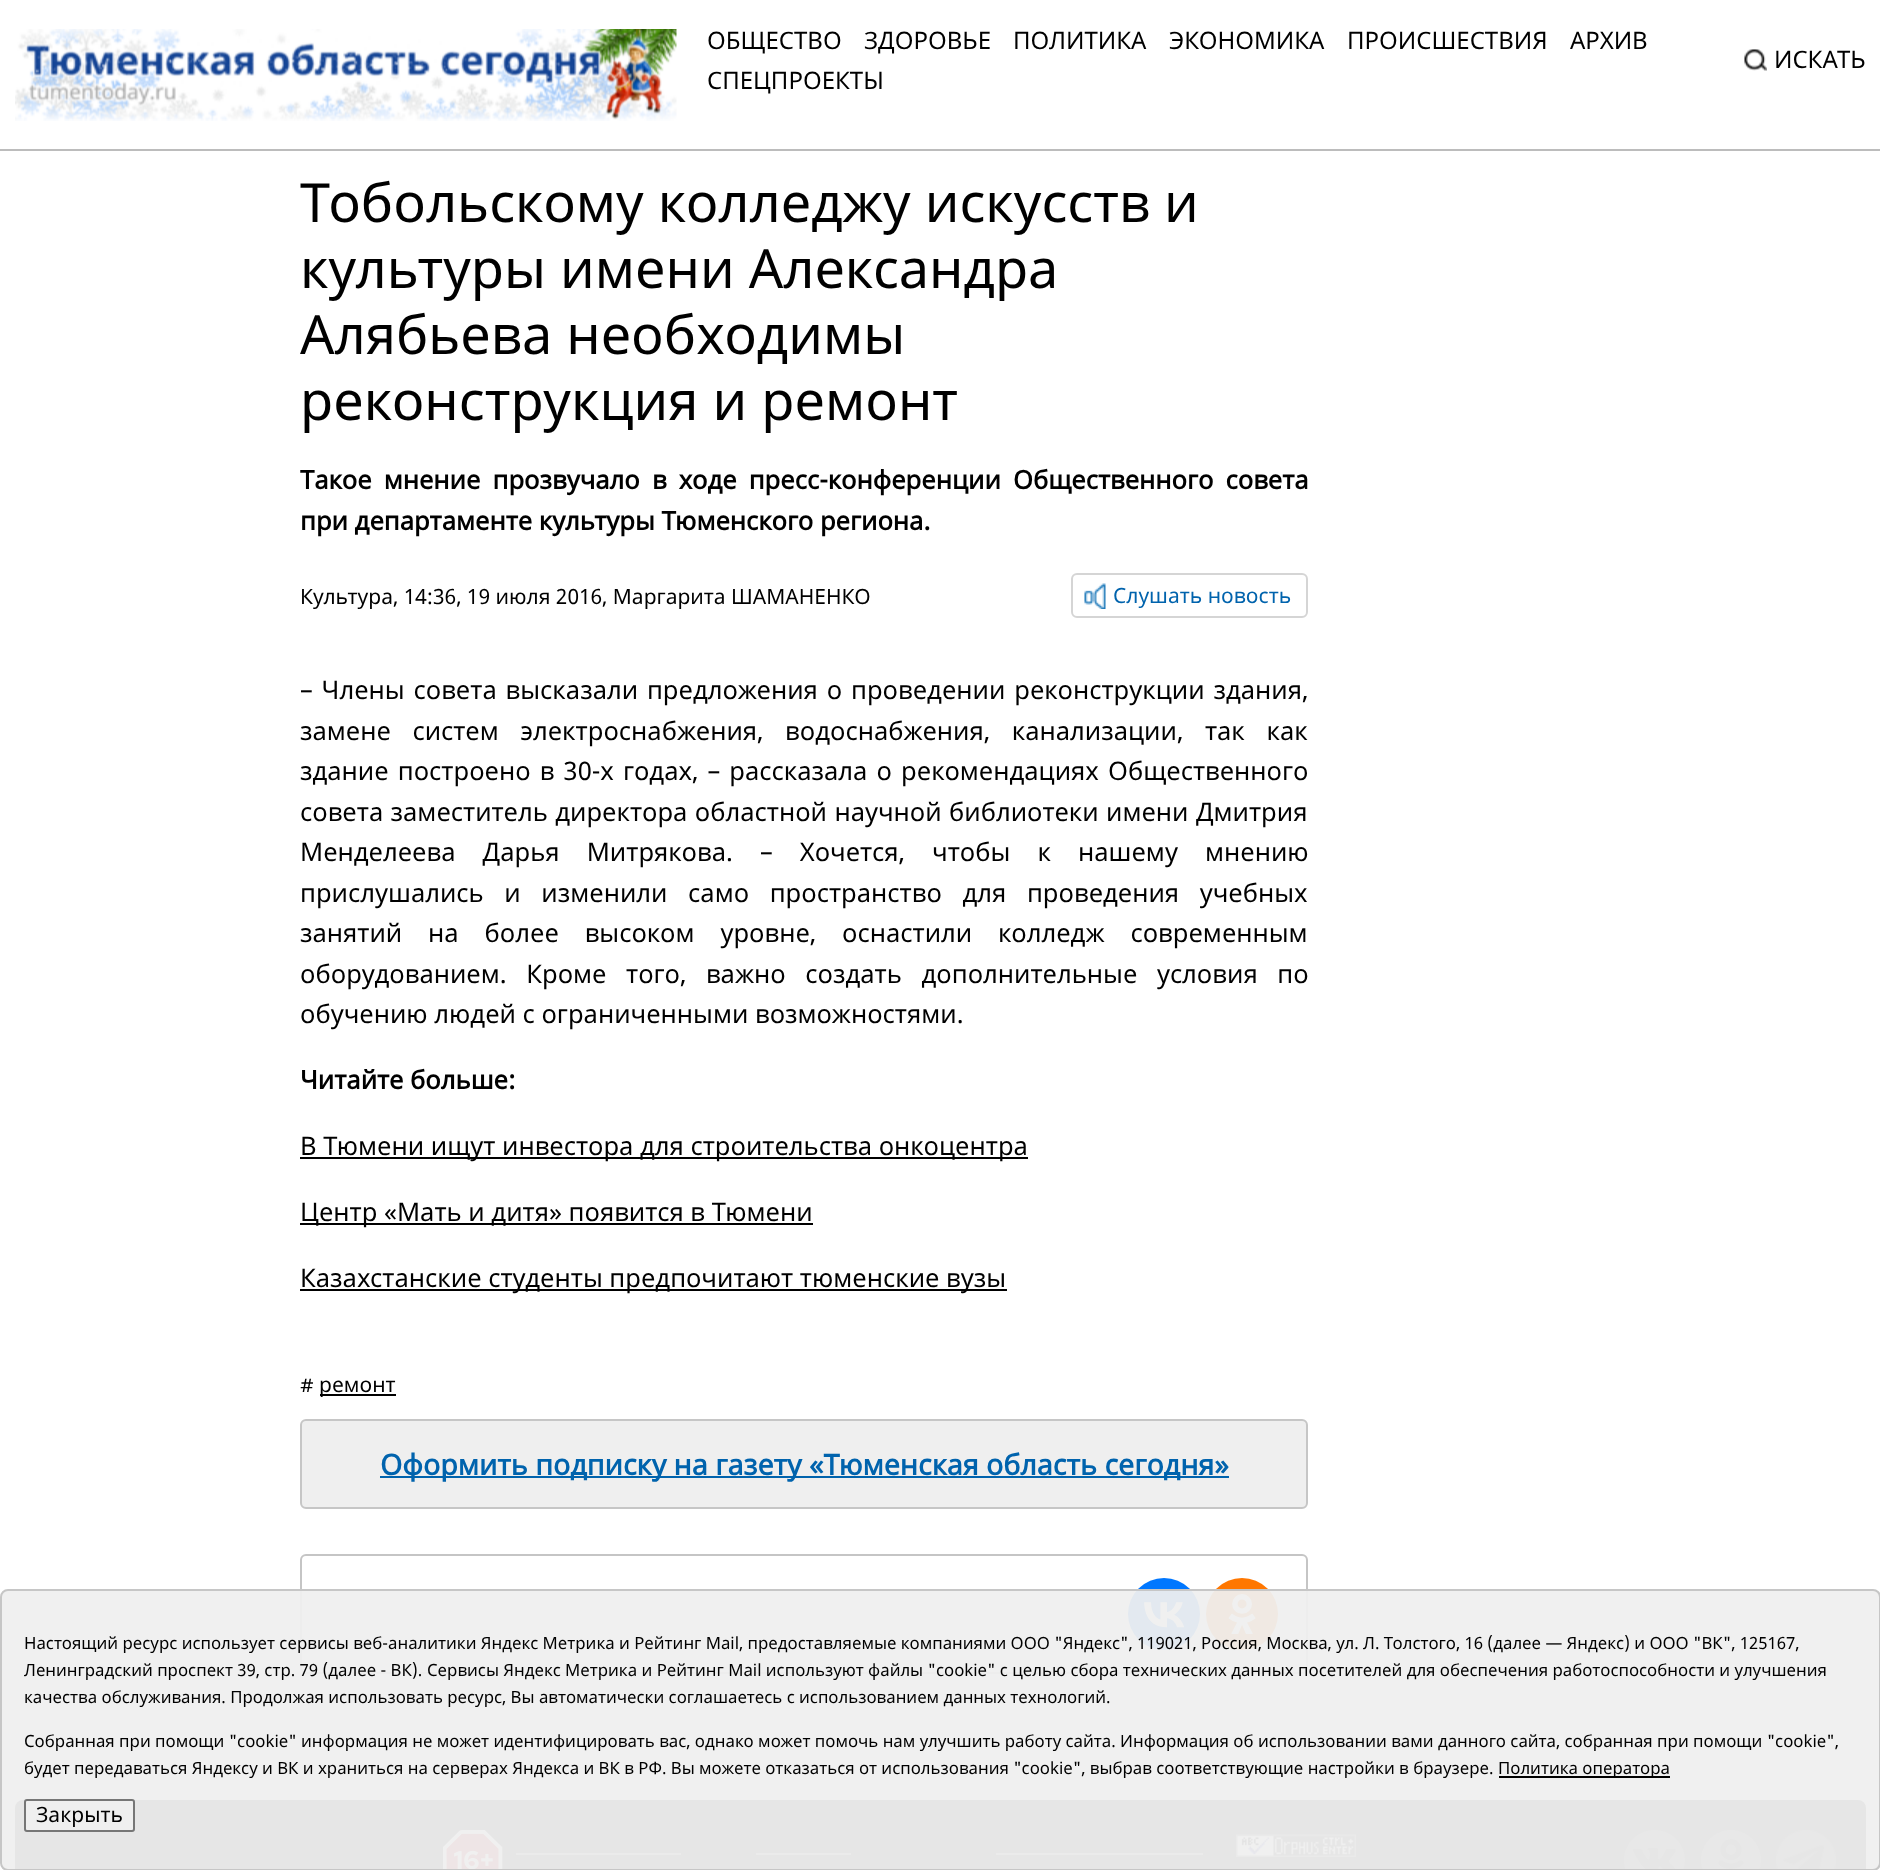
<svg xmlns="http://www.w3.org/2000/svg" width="1880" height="1870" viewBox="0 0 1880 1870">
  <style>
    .t1 { font: 24px Noto Sans; fill: #000; }
    .t2 { font: 54px Noto Sans; fill: #000; }
    .t3 { font: bold 25.5px Noto Sans; fill: #000; }
    .t4 { font: 21px Noto Sans; fill: #000; }
    .t5 { font: 21px Noto Sans; fill: #0063ad; }
    .t6 { font: 25.5px Noto Sans; fill: #000; }
    .t7 { font: bold 28.5px Noto Sans; fill: #0063ad; }
    .t8 { font: 16.8px Noto Sans; fill: #000; }
  </style>
  <rect width="100%" height="100%" fill="#fff"/>
  <rect x="0" y="149" width="1880" height="2" fill="#bcbcbc"/>
  <image x="15" y="29" width="662" height="92" href="images/1.png"/>
  <text x="707" y="49" class="t1">ОБЩЕСТВО</text>
  <text x="864" y="49" class="t1">ЗДОРОВЬЕ</text>
  <text x="1013" y="49" class="t1">ПОЛИТИКА</text>
  <text x="1169" y="49" class="t1">ЭКОНОМИКА</text>
  <text x="1347" y="49" class="t1">ПРОИСШЕСТВИЯ</text>
  <text x="1570" y="49" class="t1">АРХИВ</text>
  <text x="707" y="89" class="t1">СПЕЦПРОЕКТЫ</text>
  <image x="1744" y="49" width="23" height="22" href="images/2.png"/>
  <text x="1774" y="68" class="t1">ИСКАТЬ</text>
  <text x="300" y="222" class="t2">Тобольскому колледжу искусств и</text>
  <text x="300" y="288" class="t2">культуры имени Александра</text>
  <text x="300" y="354" class="t2">Алябьева необходимы</text>
  <text x="300" y="420" class="t2">реконструкция и ремонт</text>
  <text x="300" y="489" word-spacing="5.5" class="t3">Такое мнение прозвучало в ходе пресс-конференции Общественного совета</text>
  <text x="300" y="530" class="t3">при департаменте культуры Тюменского региона.</text>
  <text x="300" y="604" class="t4">Культура, 14:36, 19 июля 2016, Маргарита ШАМАНЕНКО</text>
  <rect x="1072" y="574" width="235" height="43" rx="5" fill="none" stroke="#d5d5d5" stroke-width="2"/>
  <image x="1084" y="583" width="22" height="26" href="images/3.png"/>
  <text x="1113" y="603" class="t5">Слушать новость</text>
  <text x="300" y="699" word-spacing="2.25" class="t6">– Члены совета высказали предложения о проведении реконструкции здания,</text>
  <text x="300" y="740" word-spacing="15" class="t6">замене систем электроснабжения, водоснабжения, канализации, так как</text>
  <text x="300" y="780" word-spacing="2.5" class="t6">здание построено в 30-х годах, – рассказала о рекомендациях Общественного</text>
  <text x="300" y="821" word-spacing="0.75" class="t6">совета заместитель директора областной научной библиотеки имени Дмитрия</text>
  <text x="300" y="861" word-spacing="20.5" class="t6">Менделеева Дарья Митрякова. – Хочется, чтобы к нашему мнению</text>
  <text x="300" y="902" word-spacing="14" class="t6">прислушались и изменили само пространство для проведения учебных</text>
  <text x="300" y="942" word-spacing="19.25" class="t6">занятий на более высоком уровне, оснастили колледж современным</text>
  <text x="300" y="983" word-spacing="13" class="t6">оборудованием. Кроме того, важно создать дополнительные условия по</text>
  <text x="300" y="1023" class="t6">обучению людей с ограниченными возможностями.</text>
  <text x="300" y="1089" class="t3">Читайте больше:</text>
  <rect x="300" y="1157" width="728" height="2" fill="#000"/>
  <text x="300" y="1155" class="t6">В Тюмени ищут инвестора для строительства онкоцентра</text>
  <rect x="300" y="1223" width="513" height="2" fill="#000"/>
  <text x="300" y="1221" class="t6">Центр «Мать и дитя» появится в Тюмени</text>
  <rect x="300" y="1289" width="707" height="2" fill="#000"/>
  <text x="300" y="1287" class="t6">Казахстанские студенты предпочитают тюменские вузы</text>
  <text x="300" y="1392" class="t4">#</text>
  <rect x="320" y="1394" width="76" height="2" fill="#000"/>
  <text x="319" y="1392" class="t4">ремонт</text>
  <rect x="301" y="1420" width="1006" height="88" rx="5" fill="#efefef" stroke="#c6c6c6" stroke-width="2"/>
  <rect x="380" y="1476" width="849" height="2" fill="#0063ad"/>
  <text x="380" y="1475" class="t7">Оформить подписку на газету «Тюменская область сегодня»</text>
  <rect x="301" y="1555" width="1006" height="118" rx="5" fill="none" stroke="#c5c5c5" stroke-width="2"/>
  <circle cx="1164" cy="1614" r="36" fill="#07f"/>
  <image x="1144" y="1602" width="40" height="26" href="images/4.png"/>
  <circle cx="1242" cy="1614" r="36" fill="#f70"/>
  <image x="1228" y="1594" width="28" height="40" href="images/5.png"/>
  <rect x="15" y="1800" width="1851" height="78" rx="8" fill="#404040"/>
  <image x="443" y="1830" width="60" height="39" href="images/6.png"/>
  <rect x="516" y="1853" width="165" height="2" fill="#a1a1a1"/>
  <rect x="756" y="1853" width="95" height="2" fill="#a1a1a1"/>
  <rect x="996" y="1853" width="207" height="2" fill="#a1a1a1"/>
  <image x="1236" y="1834" width="120" height="23" href="images/7.png"/>
  <image x="1624" y="1830" width="61" height="39" href="images/8.png"/>
  <image x="1701" y="1830" width="60" height="39" href="images/9.png"/>
  <image x="1776" y="1830" width="60" height="39" href="images/10.png"/>
  <rect x="1" y="1590" width="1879" height="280" rx="7" fill="#efefeff2" stroke="#c6c6c6" stroke-width="2"/>
  <text x="24" y="1649" class="t8">Настоящий ресурс использует сервисы веб-аналитики Яндекс Метрика и Рейтинг Mail, предоставляемые компаниями ООО "Яндекс", 119021, Россия, Москва, ул. Л. Толстого, 16 (далее — Яндекс) и ООО "ВК", 125167,</text>
  <text x="24" y="1676" class="t8">Ленинградский проспект 39, стр. 79 (далее - ВК).</text>
  <text x="427" y="1676" class="t8">Сервисы Яндекс Метрика и Рейтинг Mail используют файлы "cookie" с целью сбора технических данных посетителей для обеспечения работоспособности и улучшения</text>
  <text x="24" y="1703" class="t8">качества обслуживания. Продолжая использовать ресурс, Вы автоматически соглашаетесь с использованием данных технологий.</text>
  <text x="24" y="1747" class="t8">Собранная при помощи "cookie" информация не может идентифицировать вас, однако может помочь нам улучшить работу сайта. Информация об использовании вами данного сайта, собранная при помощи "cookie",</text>
  <text x="24" y="1774" class="t8">будет передаваться Яндексу и ВК и храниться на серверах Яндекса и ВК в РФ. Вы можете отказаться от использования "cookie", выбрав соответствующие настройки в браузере.</text>
  <rect x="1499" y="1776" width="171" height="2" fill="#000"/>
  <text x="1498" y="1774" class="t8">Политика оператора</text>
  <rect x="25" y="1800" width="109" height="31" rx="2" fill="#efefef" stroke="#767676" stroke-width="2"/>
  <text x="36" y="1822" class="t4">Закрыть</text>
</svg>
